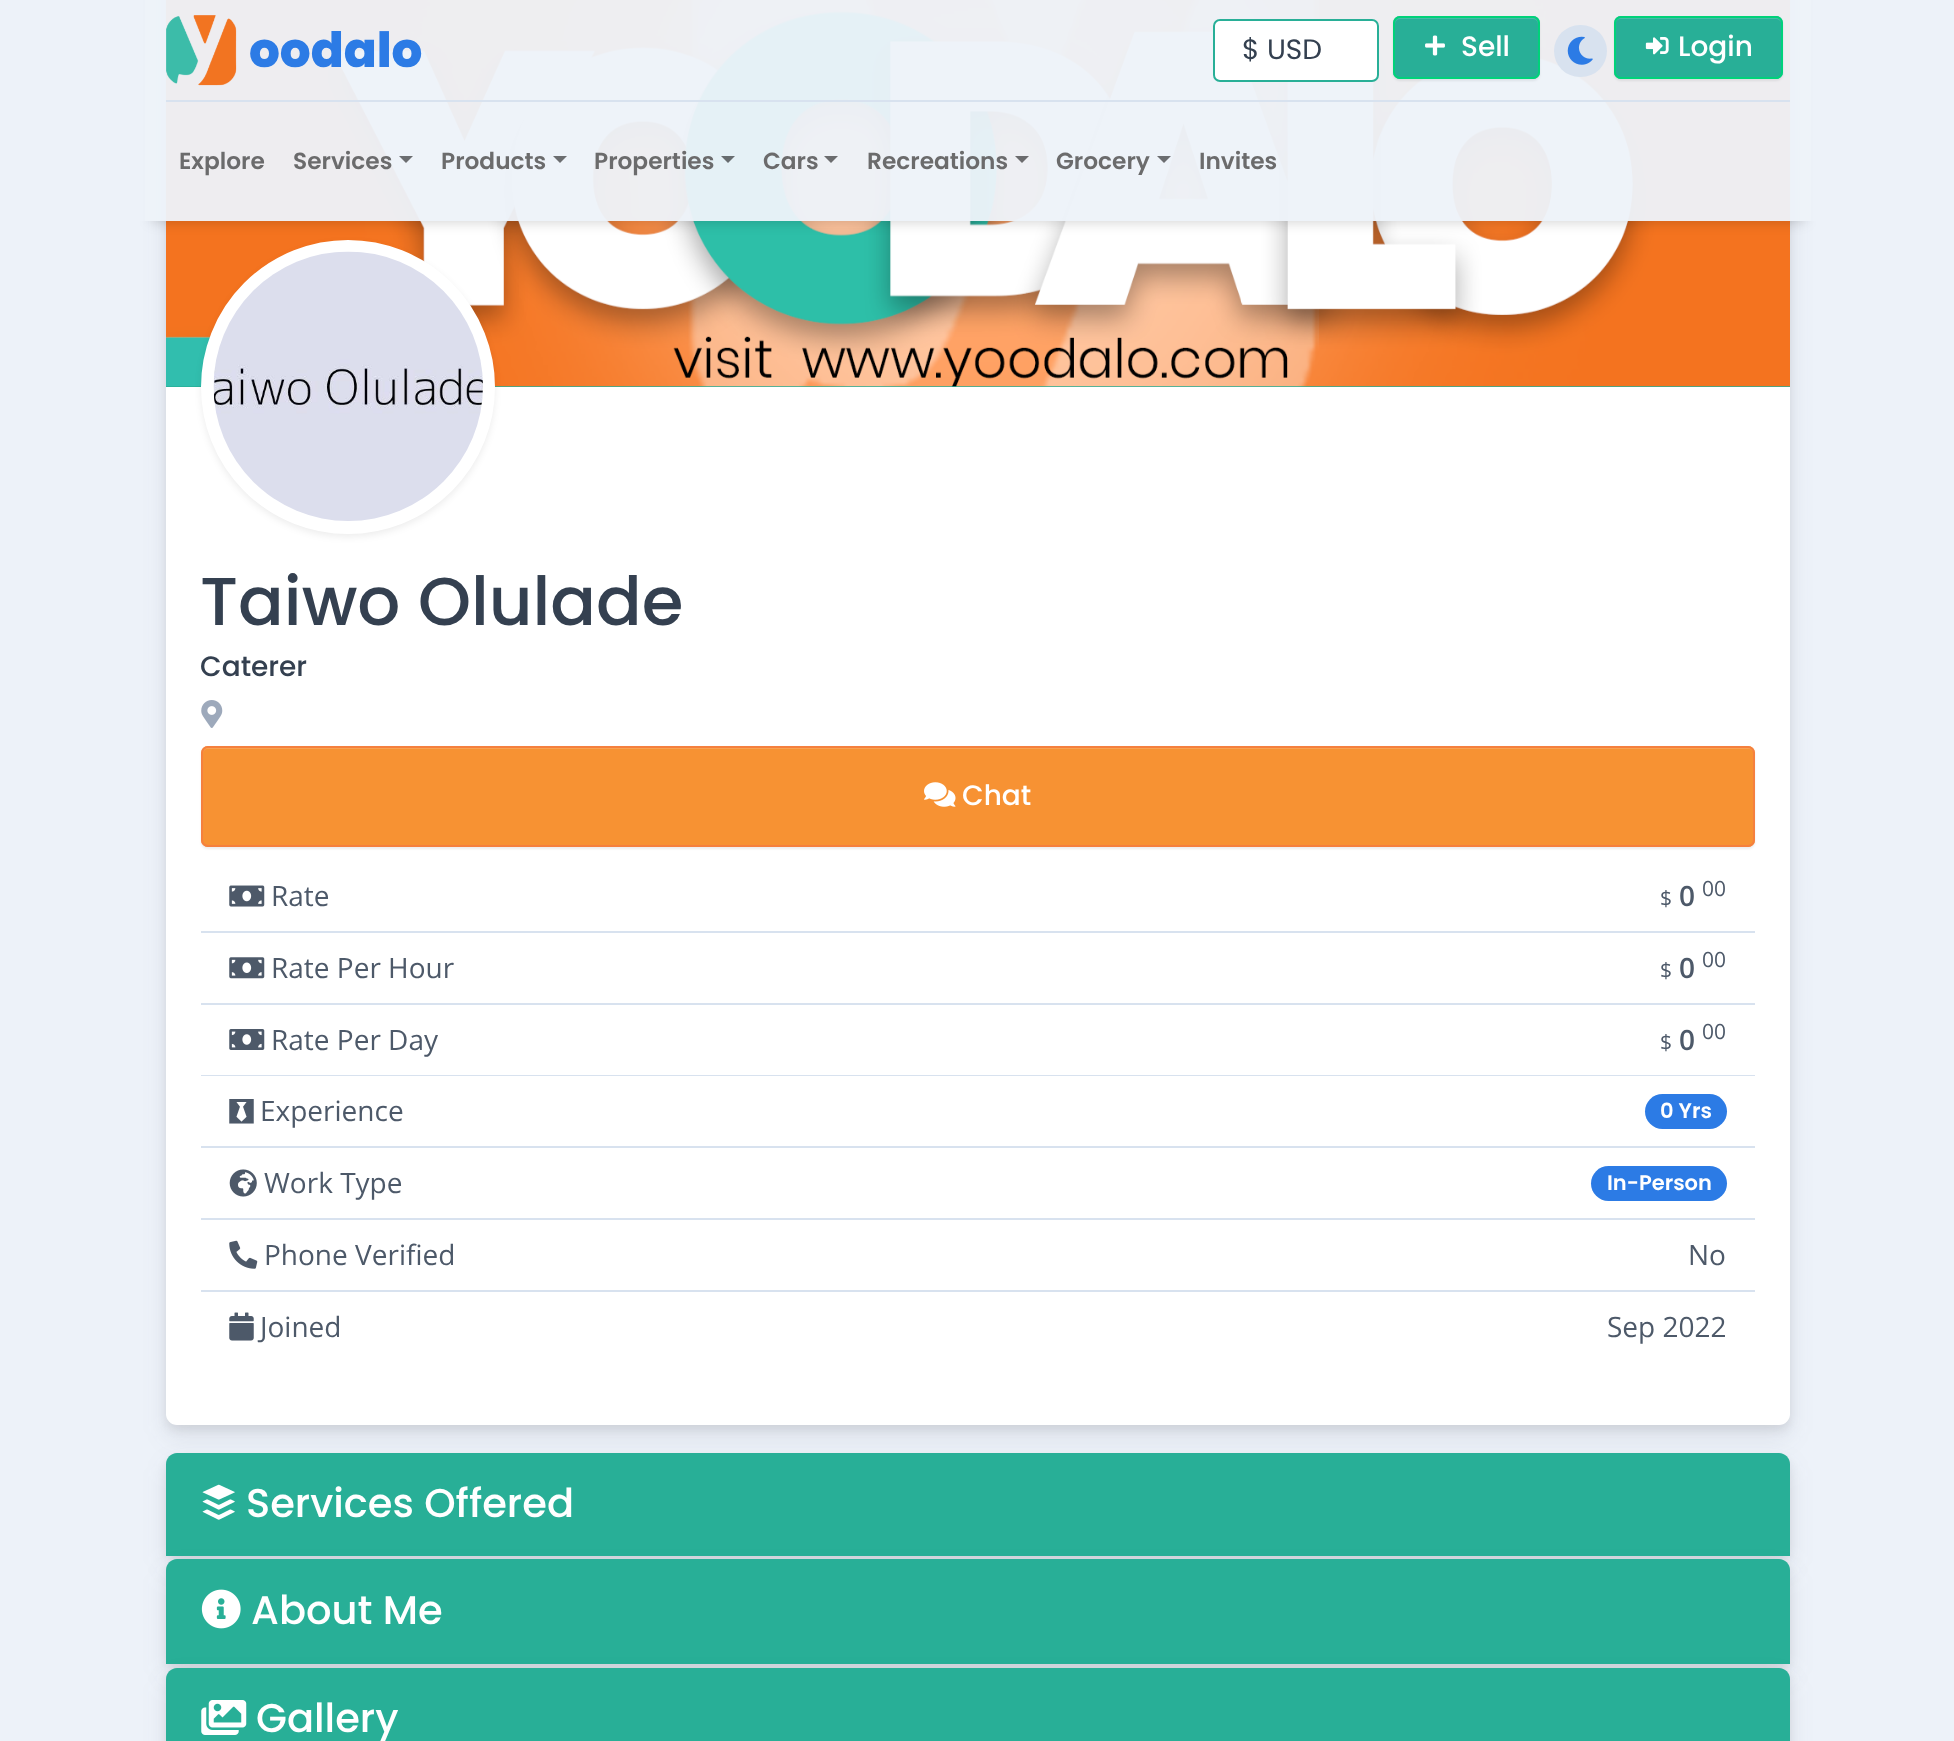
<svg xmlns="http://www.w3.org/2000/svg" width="1954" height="1741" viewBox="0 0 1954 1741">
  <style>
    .t1 { font: 800 48.5px Poppins; fill: #2c7be5; }
    .t2 { font: 28px Poppins; fill: #344050; }
    .t3 { font: 500 28px Poppins; fill: #fff; }
    .t4 { font: 600 23.25px Poppins; fill: #6b6b6c; }
    .t5 { font: 500 67.5px Poppins; fill: #344050; }
    .t6 { font: 500 28px Poppins; fill: #344050; }
    .t7 { font: 28px Open Sans; fill: #4d5969; }
    .t8 { font: 21px Open Sans; fill: #4d5969; }
    .t9 { font: 600 28px Open Sans; fill: #4d5969; }
    .t10 { font: 600 21px Poppins; fill: #fff; }
    .t11 { font: 500 40px Poppins; fill: #fff; }
  </style>
  <defs>
    <clipPath id="clip1"><path d="M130 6H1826V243H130ZM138 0H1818V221H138Z" clip-rule="evenodd"/></clipPath>
  </defs>
  <rect width="100%" height="100%" fill="#edf2f9"/>
  <rect x="166" y="-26" width="1624" height="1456" rx="11" fill="#00000012" filter="blur(5px)"/>
  <rect x="166" y="-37" width="1624" height="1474" rx="11" fill="#4145581a" filter="blur(12px)"/>
  <rect x="166" y="-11" width="1624" height="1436" rx="11" fill="#fff"/>
  <rect x="166" y="386" width="1624" height="1" fill="#28af97"/>
  <image x="166" y="0" width="1624" height="387" href="images/5.png"/>
  <rect x="201" y="243" width="294" height="294" rx="147" fill="#00000012" filter="blur(3.5px)"/>
  <circle cx="348" cy="387" r="144.5" fill="#fff" stroke="#fff" stroke-width="5"/>
  <g clip-path="url(#clip1)">
    <rect x="152" y="28" width="1652" height="193" fill="#00000033" filter="blur(7px)"/>
  </g>
  <rect x="145" y="0" width="1666" height="221" fill="#edf2f9f5"/>
  <image x="166" y="15" width="71" height="71" href="images/1.png"/>
  <text x="249" y="67" class="t1">oodalo</text>
  <rect x="1214" y="20" width="164" height="61" rx="6" fill="#fff" stroke="#28af97" stroke-width="2"/>
  <text x="1242" y="59" class="t2">$ USD</text>
  <rect x="1393" y="18" width="147" height="63" rx="7" fill="#00000012" filter="blur(1px)"/>
  <rect x="1393" y="16" width="147" height="63" rx="7" fill="#28af97"/>
  <path d="M1400 19H1533C1536 19 1538 22 1538 24V23C1538 20 1536 18 1533 18H1400C1397 18 1395 20 1395 23V24C1395 22 1397 19 1400 19Z" fill="#48bba7"/>
  <rect x="1394" y="17" width="145" height="61" rx="6" fill="none" stroke="#00d27a" stroke-width="2"/>
  <image x="1425" y="35" width="20" height="21" href="images/2.png"/>
  <text x="1461" y="56" class="t3">Sell</text>
  <rect x="1554" y="25" width="53" height="52" rx="26" fill="#d8e2ef"/>
  <image x="1567" y="36" width="26" height="29" href="images/3.png"/>
  <rect x="1614" y="18" width="169" height="63" rx="7" fill="#00000012" filter="blur(1px)"/>
  <rect x="1614" y="16" width="169" height="63" rx="7" fill="#28af97"/>
  <path d="M1620 19H1776C1779 19 1782 22 1782 24C1782 21 1781 19 1778 18H1620C1617 18 1615 21 1615 24C1615 22 1618 19 1620 19Z" fill="#48bba7"/>
  <rect x="1615" y="17" width="167" height="61" rx="6" fill="none" stroke="#00d27a" stroke-width="2"/>
  <image x="1645" y="37" width="24" height="18" href="images/4.png"/>
  <text x="1678" y="56" class="t3">Login</text>
  <rect x="166" y="100" width="1624" height="2" fill="#d8e2ef"/>
  <text x="179" y="169" class="t4">Explore</text>
  <text x="293" y="169" class="t4">Services</text>
  <path d="M399 156H413L406 163Z" fill="#6b6d70"/>
  <text x="441" y="169" class="t4">Products</text>
  <path d="M553 156H567L560 163Z" fill="#6b6d70"/>
  <text x="594" y="169" class="t4">Properties</text>
  <path d="M721 156H735L728 163Z" fill="#676c6f"/>
  <text x="763" y="169" class="t4">Cars</text>
  <path d="M824 156H838L831 163Z" fill="#6b6c6e"/>
  <text x="867" y="169" class="t4">Recreations</text>
  <path d="M1015 156H1029L1022 163Z" fill="#6b6b6d"/>
  <text x="1056" y="169" class="t4">Grocery</text>
  <path d="M1157 156H1171L1164 163Z" fill="#6b6d70"/>
  <text x="1199" y="169" class="t4">Invites</text>
  <image x="213" y="251" width="270" height="270" href="images/6.png"/>
  <text x="200" y="625" class="t5">Taiwo Olulade</text>
  <text x="200" y="676" class="t6">Caterer</text>
  <image x="201" y="700" width="22" height="28" href="images/7.png"/>
  <rect x="201" y="747" width="1554" height="102" rx="7" fill="#00000012" filter="blur(1px)"/>
  <rect x="201" y="746" width="1554" height="101" rx="7" fill="#f79233"/>
  <path d="M208 749H1748C1751 749 1754 751 1754 754C1754 751 1753 747 1749 747H208C204 747 203 751 203 754C203 751 205 749 208 749Z" fill="#f8a252"/>
  <rect x="202" y="747" width="1552" height="99" rx="6" fill="none" stroke="#f5803e" stroke-width="2"/>
  <image x="924" y="782" width="32" height="25" href="images/8.png"/>
  <text x="962" y="805" class="t3">Chat</text>
  <rect x="201" y="931" width="1554" height="2" fill="#d8e2ef"/>
  <image x="229" y="885" width="36" height="22" href="images/9.png"/>
  <text x="271" y="906" class="t7">Rate</text>
  <text x="1660" y="906" class="t8">$</text>
  <text x="1679" y="906" class="t9">0</text>
  <text x="1702" y="896" class="t8">00</text>
  <rect x="201" y="1003" width="1554" height="2" fill="#d8e2ef"/>
  <image x="229" y="957" width="36" height="22" href="images/10.png"/>
  <text x="271" y="978" class="t7">Rate Per Hour</text>
  <text x="1660" y="978" class="t8">$</text>
  <text x="1679" y="978" class="t9">0</text>
  <text x="1702" y="967" class="t8">00</text>
  <rect x="201" y="1075" width="1554" height="1" fill="#d8e2ef"/>
  <image x="229" y="1029" width="36" height="21" href="images/11.png"/>
  <text x="271" y="1050" class="t7">Rate Per Day</text>
  <text x="1660" y="1050" class="t8">$</text>
  <text x="1679" y="1050" class="t9">0</text>
  <text x="1702" y="1039" class="t8">00</text>
  <rect x="201" y="1146" width="1554" height="2" fill="#d8e2ef"/>
  <image x="229" y="1099" width="25" height="25" href="images/12.png"/>
  <text x="260" y="1121" class="t7">Experience</text>
  <rect x="1645" y="1094" width="82" height="35" rx="17.5" fill="#2c7be5"/>
  <text x="1660" y="1118" class="t10">0 Yrs</text>
  <rect x="201" y="1218" width="1554" height="2" fill="#d8e2ef"/>
  <image x="229" y="1169" width="28" height="28" href="images/13.png"/>
  <text x="264" y="1193" class="t7">Work Type</text>
  <rect x="1591" y="1166" width="136" height="35" rx="17.5" fill="#2c7be5"/>
  <text x="1607" y="1190" class="t10">In-Person</text>
  <rect x="201" y="1290" width="1554" height="2" fill="#d8e2ef"/>
  <image x="229" y="1240" width="29" height="29" href="images/14.png"/>
  <text x="264" y="1265" class="t7">Phone Verified</text>
  <text x="1688" y="1265" class="t7">No</text>
  <image x="229" y="1312" width="25" height="29" href="images/15.png"/>
  <text x="260" y="1337" class="t7">Joined</text>
  <text x="1607" y="1337" class="t7">Sep 2022</text>
  <rect x="166" y="1458" width="1624" height="103" rx="11" fill="#00000012" filter="blur(5px)"/>
  <rect x="166" y="1465" width="1624" height="103" rx="11" fill="#4145581a" filter="blur(12px)"/>
  <path d="M177 1453H1779C1785 1453 1790 1458 1790 1464V1556H166V1464C166 1458 171 1453 177 1453Z" fill="#28af97"/>
  <image x="202" y="1484" width="33" height="36" href="images/16.png"/>
  <text x="246" y="1517" class="t11">Services Offered</text>
  <rect x="166" y="1565" width="1624" height="105" rx="11" fill="#00000012" filter="blur(5px)"/>
  <rect x="166" y="1572" width="1624" height="105" rx="11" fill="#4145581a" filter="blur(12px)"/>
  <path d="M177 1559H1779C1785 1559 1790 1564 1790 1570V1664H166V1570C166 1564 171 1559 177 1559Z" fill="#28af97"/>
  <image x="201" y="1589" width="40" height="40" href="images/17.png"/>
  <text x="251" y="1624" class="t11">About Me</text>
  <rect x="166" y="1673" width="1624" height="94" rx="11" fill="#00000012" filter="blur(5px)"/>
  <rect x="166" y="1680" width="1624" height="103" rx="11" fill="#4145581a" filter="blur(12px)"/>
  <path d="M177 1668H1779C1785 1668 1790 1673 1790 1679V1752H166V1679C166 1673 171 1668 177 1668Z" fill="#28af97"/>
  <image x="201" y="1700" width="46" height="35" href="images/18.png"/>
  <text x="256" y="1732" class="t11">Gallery</text>
</svg>
